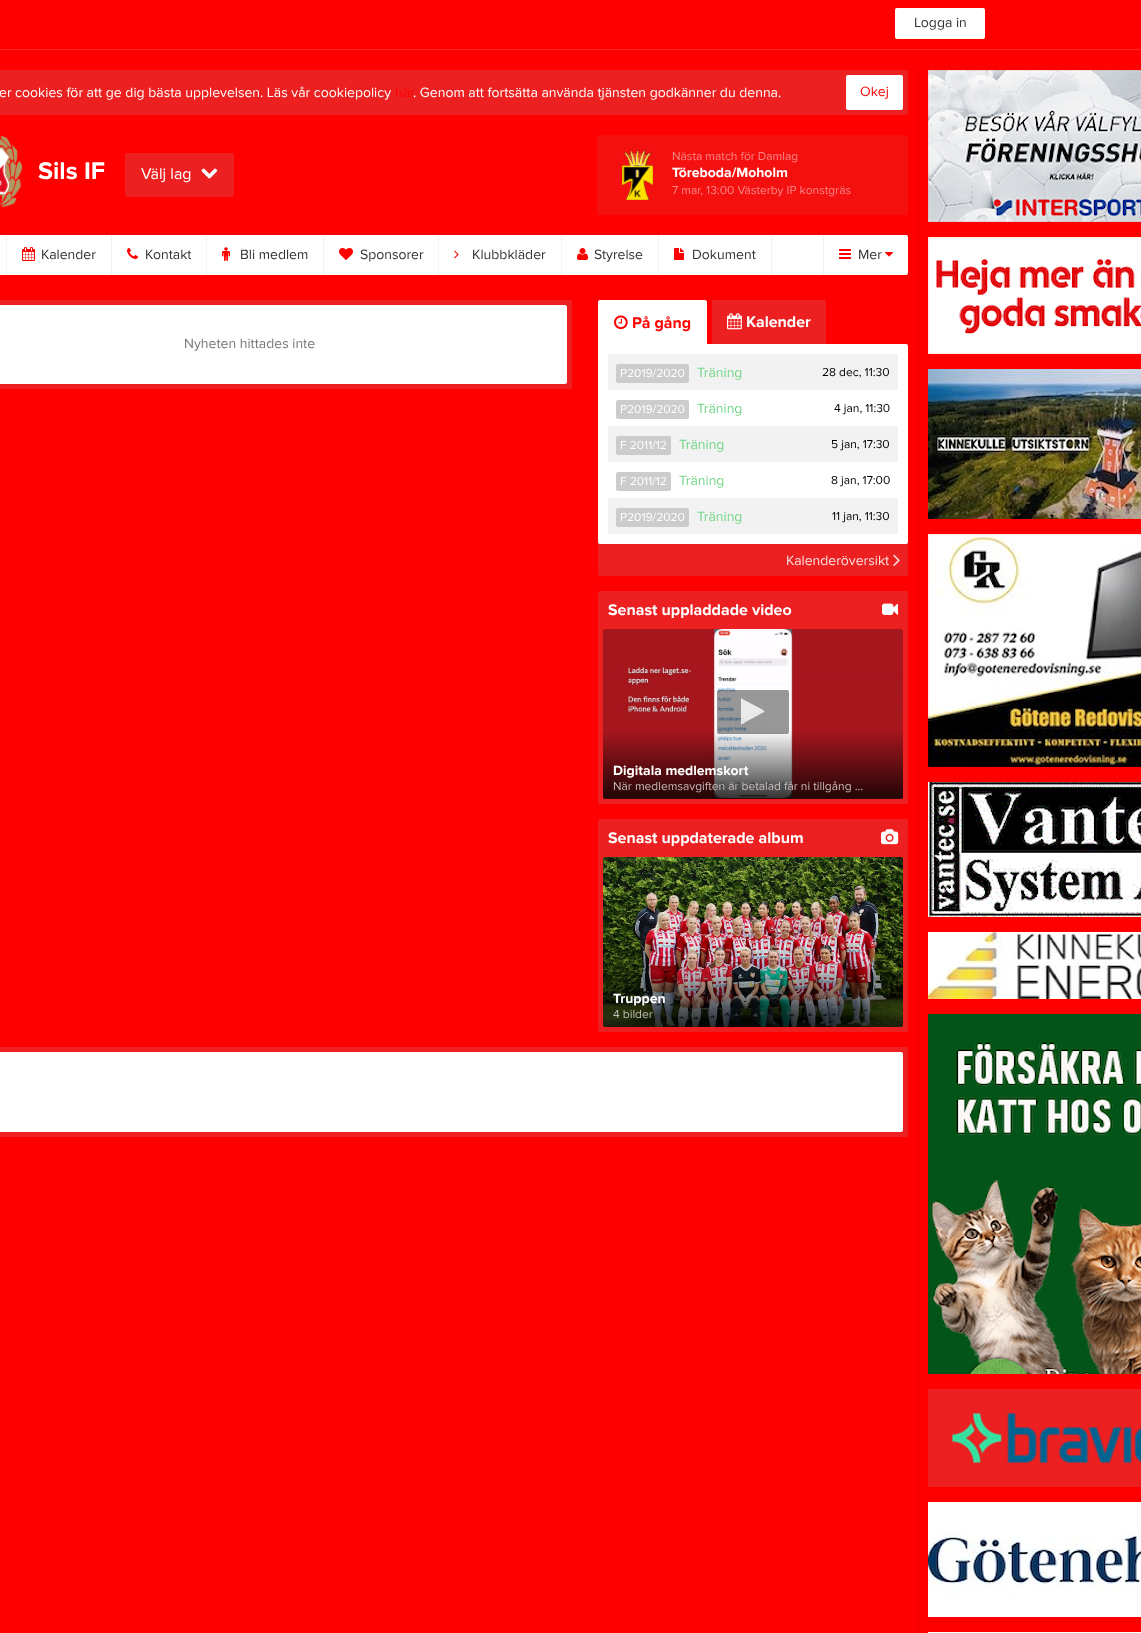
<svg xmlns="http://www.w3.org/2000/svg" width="1141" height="1633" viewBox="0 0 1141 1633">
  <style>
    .t1 { font: 14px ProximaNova; fill: #333; }
    .t2 { font: 14px ProximaNova; fill: #fff; }
    .t3 { font: 14px ProximaNova; fill: #f00; }
    .t4 { font: bold 25px ProximaNova; fill: #fff; }
    .t5 { font: 16px ProximaNova; fill: #fff; }
    .t6 { font: 12px ProximaNova; fill: #fa8888; }
    .t7 { font: bold 14px ProximaNova; fill: #fff; }
    .t8 { font: 14px ProximaNova; fill: #777; }
    .t9 { font: bold 16px ProximaNova; fill: #f00; }
    .t10 { font: bold 16px ProximaNova; fill: #fff; }
    .t11 { font: 12px ProximaNova; fill: #fff; }
    .t12 { font: 14px ProximaNova; fill: #72d687; }
    .t13 { font: 12px ProximaNova; fill: #000; }
    .t14 { font: 14px ProximaNova; fill: #fcdede; }
    .t15 { font: 12px ProximaNova; fill: #c6bcbc; }
    .t16 { font: 12px ProximaNova; fill: #bcbfb5; }
  </style>
  <defs>
    <linearGradient id="g1" gradientUnits="userSpaceOnUse" x1="753" y1="713" x2="753" y2="799"><stop offset="0.2" stop-color="#000" stop-opacity="0"/><stop offset="1" stop-color="#000" stop-opacity="0.8"/></linearGradient>
    <linearGradient id="g2" gradientUnits="userSpaceOnUse" x1="753" y1="941" x2="753" y2="1027"><stop offset="0.2" stop-color="#000" stop-opacity="0"/><stop offset="1" stop-color="#000" stop-opacity="0.8"/></linearGradient>
  </defs>
  <rect width="100%" height="100%" fill="#f00"/>
  <rect x="0" y="49" width="1141" height="1" fill="#ff2626"/>
  <rect x="895" y="8" width="90" height="31" rx="2" fill="#fff"/>
  <text x="914" y="27" class="t1">Logga in</text>
  <rect x="-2" y="70" width="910" height="45" rx="2" fill="#ec2020"/>
  <text x="-1" y="97" class="t2">er cookies för att ge dig bästa upplevelsen. Läs vår cookiepolicy</text>
  <text x="395" y="97" class="t3">här</text>
  <text x="413" y="97" class="t2">. Genom att fortsätta använda tjänsten godkänner du denna.</text>
  <rect x="846" y="75" width="57" height="35" rx="2" fill="#fff"/>
  <text x="860" y="96" class="t3">Okej</text>
  <image x="0" y="135" width="22" height="73" href="images/1.png"/>
  <text x="38" y="179" class="t4">Sils IF</text>
  <rect x="125" y="153" width="109" height="44" rx="2" fill="#ec2020"/>
  <text x="141" y="179" class="t5">Välj lag</text>
  <image x="201" y="168" width="17" height="11" href="images/2.png"/>
  <rect x="597" y="135" width="311" height="80" rx="2" fill="#f51010"/>
  <image x="622" y="150" width="31" height="50" href="images/3.png"/>
  <text x="672" y="160" class="t6">Nästa match för Damlag</text>
  <text x="672" y="177" class="t7">Töreboda/Moholm</text>
  <text x="672" y="194" class="t6">7 mar, 13:00 Västerby IP konstgräs</text>
  <rect x="-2" y="235" width="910" height="40" rx="2" fill="#fff"/>
  <rect x="6" y="235" width="1" height="40" fill="#f3f3f3"/>
  <rect x="111" y="235" width="1" height="40" fill="#f3f3f3"/>
  <image x="22" y="247" width="13" height="14" href="images/4.png"/>
  <text x="41" y="259" class="t1">Kalender</text>
  <rect x="206" y="235" width="1" height="40" fill="#f3f3f3"/>
  <image x="127" y="248" width="11" height="11" href="images/5.png"/>
  <text x="145" y="259" class="t1">Kontakt</text>
  <rect x="323" y="235" width="1" height="40" fill="#f3f3f3"/>
  <image x="222" y="247" width="8" height="14" href="images/6.png"/>
  <text x="240" y="259" class="t1">Bli medlem</text>
  <rect x="438" y="235" width="1" height="40" fill="#f3f3f3"/>
  <image x="339" y="248" width="14" height="12" href="images/7.png"/>
  <text x="360" y="259" class="t1">Sponsorer</text>
  <rect x="561" y="235" width="1" height="40" fill="#f3f3f3"/>
  <image x="454" y="250" width="5" height="9" href="images/8.png"/>
  <text x="472" y="259" class="t1">Klubbkläder</text>
  <rect x="658" y="235" width="1" height="40" fill="#f3f3f3"/>
  <image x="577" y="248" width="11" height="12" href="images/9.png"/>
  <text x="594" y="259" class="t1">Styrelse</text>
  <rect x="771" y="235" width="1" height="40" fill="#f3f3f3"/>
  <image x="674" y="248" width="10" height="12" href="images/10.png"/>
  <text x="692" y="259" class="t1">Dokument</text>
  <rect x="823" y="235" width="1" height="40" fill="#f3f3f3"/>
  <image x="839" y="249" width="12" height="10" href="images/11.png"/>
  <text x="858" y="259" class="t1">Mer</text>
  <image x="885" y="252" width="8" height="5" href="images/12.png"/>
  <rect x="-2" y="300" width="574" height="89" rx="2" fill="#ec2020"/>
  <rect x="-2" y="305" width="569" height="79" rx="2" fill="#fff"/>
  <text x="184" y="348" class="t8">Nyheten hittades inte</text>
  <path d="M600 300H705C706 300 707 301 707 302V344H598V302C598 301 599 300 600 300Z" fill="#fff"/>
  <image x="614" y="315" width="14" height="15" href="images/13.png"/>
  <text x="632" y="328" class="t9">På gång</text>
  <rect x="598" y="344" width="310" height="232" rx="2" fill="#ec2020"/>
  <rect x="598" y="344" width="310" height="200" rx="2" fill="#fff"/>
  <rect x="598" y="344" width="2" height="2" fill="#fff"/>
  <path d="M714 300H824C825 300 826 301 826 302V344H712V302C712 301 713 300 714 300Z" fill="#ec2020"/>
  <image x="727" y="313" width="15" height="17" href="images/14.png"/>
  <text x="746" y="327" class="t10">Kalender</text>
  <rect x="608" y="354" width="290" height="36" fill="#f2f2f2"/>
  <rect x="616" y="364" width="73" height="19" rx="2" fill="#ccc"/>
  <text x="620" y="377" class="t11">P2019/2020</text>
  <text x="697" y="377" class="t12">Träning</text>
  <text x="822" y="376" class="t13">28 dec, 11:30</text>
  <rect x="616" y="400" width="73" height="19" rx="2" fill="#ccc"/>
  <text x="620" y="413" class="t11">P2019/2020</text>
  <text x="697" y="413" class="t12">Träning</text>
  <text x="834" y="412" class="t13">4 jan, 11:30</text>
  <rect x="608" y="426" width="290" height="36" fill="#f2f2f2"/>
  <rect x="616" y="436" width="55" height="19" rx="2" fill="#ccc"/>
  <text x="620" y="449" class="t11">F 2011/12</text>
  <text x="679" y="449" class="t12">Träning</text>
  <text x="831" y="448" class="t13">5 jan, 17:30</text>
  <rect x="616" y="472" width="55" height="19" rx="2" fill="#ccc"/>
  <text x="620" y="485" class="t11">F 2011/12</text>
  <text x="679" y="485" class="t12">Träning</text>
  <text x="831" y="484" class="t13">8 jan, 17:00</text>
  <rect x="608" y="498" width="290" height="36" fill="#f2f2f2"/>
  <rect x="616" y="508" width="73" height="19" rx="2" fill="#ccc"/>
  <text x="620" y="521" class="t11">P2019/2020</text>
  <text x="697" y="521" class="t12">Träning</text>
  <text x="832" y="520" class="t13">11 jan, 11:30</text>
  <text x="786" y="565" class="t14">Kalenderöversikt</text>
  <image x="893" y="554" width="7" height="12" href="images/15.png"/>
  <rect x="598" y="591" width="310" height="213" rx="2" fill="#ec2020"/>
  <text x="608" y="615" class="t10">Senast uppladdade video</text>
  <image x="882" y="603" width="16" height="12" href="images/16.png"/>
  <image x="603" y="629" width="300" height="169" href="images/17.png"/>
  <rect x="717" y="690" width="72" height="44" rx="2" fill="#00000066"/>
  <path d="M764 712L745.5 722C745 722.5 742 725 741 724V698.5H741.5L760.5 708.5L764.5 711Z" fill="#ffffffcc"/>
  <path d="M603 713H903V797C903 798 902 799 901 799H605C604 799 603 798 603 797Z" fill="url(#g1)"/>
  <text x="613" y="775" class="t7">Digitala medlemskort</text>
  <text x="613" y="790" class="t15">När medlemsavgiften är betalad får ni tillgång ...</text>
  <rect x="598" y="819" width="310" height="213" rx="2" fill="#ec2020"/>
  <text x="608" y="843" class="t10">Senast uppdaterade album</text>
  <image x="881" y="829" width="18" height="16" href="images/18.png"/>
  <image x="603" y="857" width="300" height="170" href="images/19.png"/>
  <path d="M603 941H903V1025C903 1026 902 1027 901 1027H605C604 1027 603 1026 603 1025Z" fill="url(#g2)"/>
  <text x="613" y="1003" class="t7">Truppen</text>
  <text x="613" y="1018" class="t16">4 bilder</text>
  <rect x="-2" y="1047" width="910" height="90" rx="2" fill="#ec2020"/>
  <rect x="-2" y="1052" width="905" height="80" rx="2" fill="#fff"/>
  <rect x="918" y="70" width="1" height="1563" fill="#e60000"/>
  <image x="928" y="70" width="213" height="152" href="images/20.png"/>
  <image x="928" y="237" width="213" height="117" href="images/21.png"/>
  <image x="928" y="369" width="213" height="150" href="images/22.png"/>
  <image x="928" y="534" width="213" height="233" href="images/23.png"/>
  <image x="928" y="782" width="213" height="135" href="images/24.png"/>
  <image x="928" y="932" width="213" height="67" href="images/25.png"/>
  <image x="928" y="1014" width="213" height="360" href="images/26.png"/>
  <rect x="928" y="1389" width="213" height="98" fill="#ec2020"/>
  <image x="952" y="1413" width="189" height="50" href="images/27.png"/>
  <image x="928" y="1502" width="213" height="115" href="images/28.png"/>
  <rect x="928" y="1632" width="213" height="1" fill="#fff"/>
</svg>
